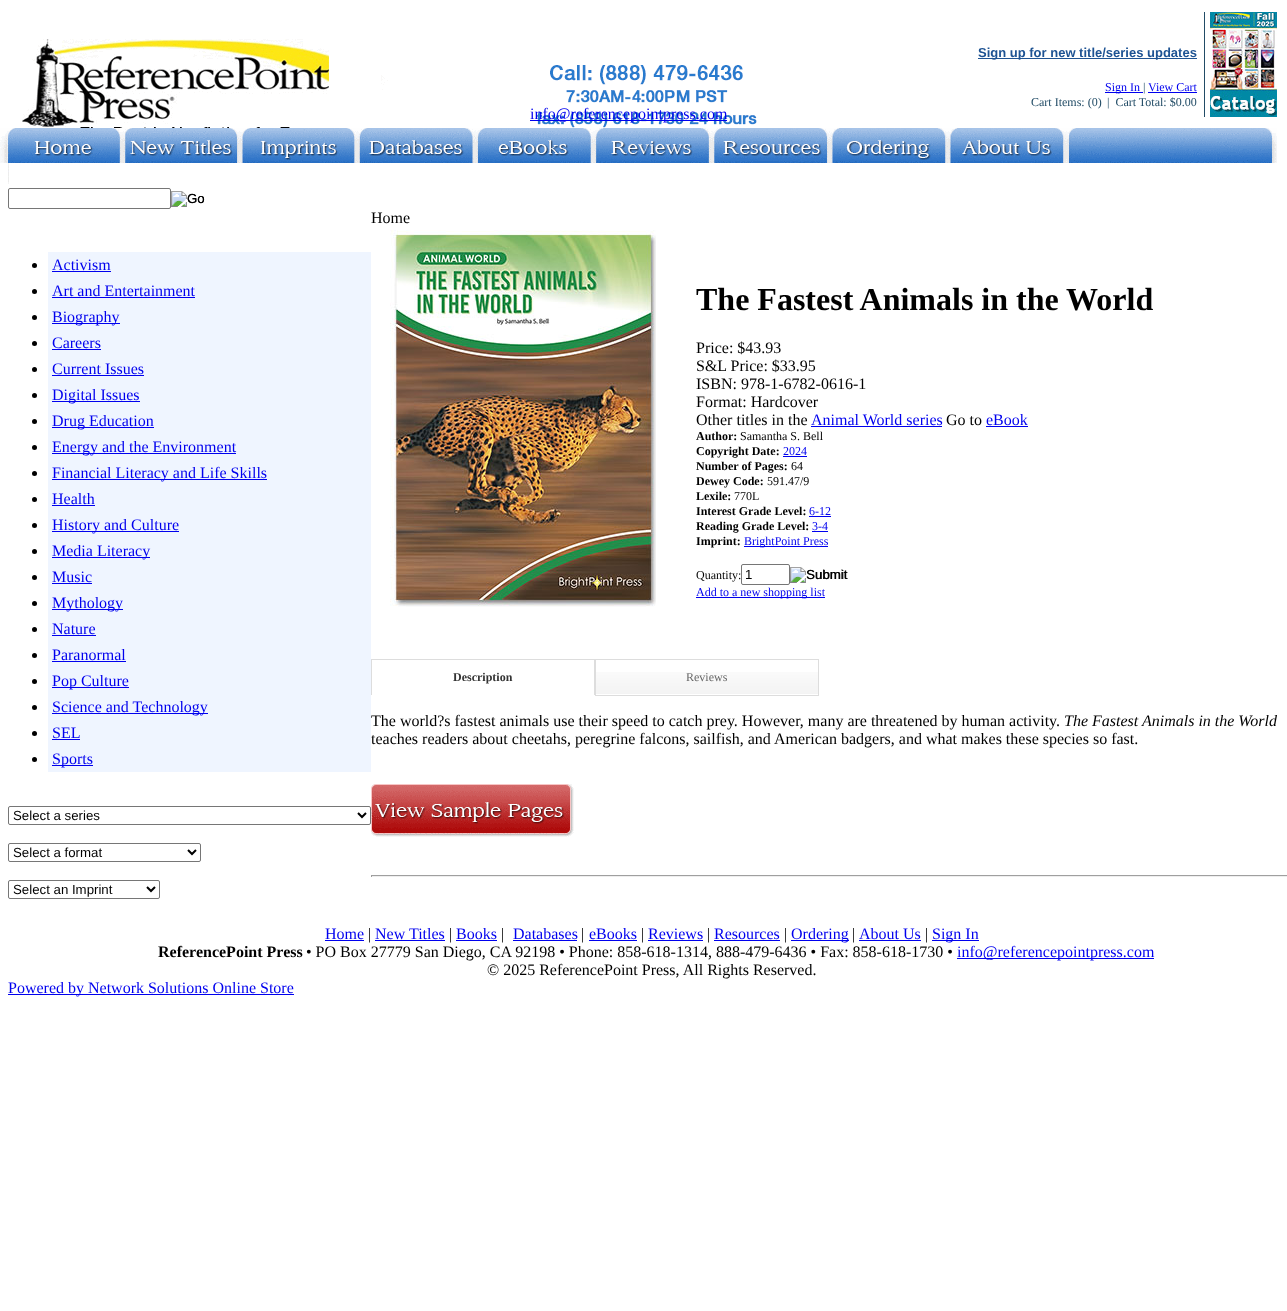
<svg xmlns="http://www.w3.org/2000/svg" width="1287" height="1311" viewBox="0 0 1287 1311">
  <style>
    .t1 { font: bold 13px Liberation Sans; fill: #1e5393; }
    .t2 { font: 12px Liberation Serif; fill: #00e; }
    .t3 { font: 12px Liberation Serif; fill: #224c66; }
    .t4 { font: 16px Liberation Serif; fill: #00e; }
    .t5 { font: 13.25px Liberation Sans; fill: #000; }
    .t6 { font: 16px Liberation Serif; fill: #000; }
    .t7 { font: bold 32px Liberation Serif; fill: #000; }
    .t8 { font: bold 12px Liberation Serif; fill: #000; }
    .t9 { font: 12px Liberation Serif; fill: #000; }
    .t10 { font: bold 12px Liberation Serif; fill: #333; }
    .t11 { font: 12px Liberation Serif; fill: #666; }
    .t12 { font: italic 16px Liberation Serif; fill: #000; }
    .t13 { font: bold 16px Liberation Serif; fill: #000; }
  </style>
  <rect width="100%" height="100%" fill="#fff"/>
  <image x="8" y="39" width="1218" height="145" href="images/1.png"/>
  <rect x="1204" y="12" width="1" height="105" fill="#224c66"/>
  <image x="1210" y="12" width="67" height="105" href="images/2.png"/>
  <rect x="978" y="58" width="219" height="1" fill="#1e5393"/>
  <text x="978" y="57" class="t1">Sign up for new title/series updates</text>
  <rect x="1105" y="92" width="38" height="1" fill="#00e"/>
  <text x="1105" y="91" class="t2">Sign In</text>
  <text x="1143" y="91" class="t3">|</text>
  <text x="1148" y="91" class="t2">View Cart</text>
  <rect x="1148" y="92" width="49" height="1" fill="#00e"/>
  <text x="1031" y="106" class="t3">Cart Items: (0)</text>
  <text x="1107" y="106" class="t3" xml:space="preserve">|  Cart Total: $0.00</text>
  <rect x="530" y="120" width="197" height="1" fill="#00e"/>
  <text x="530" y="119" class="t4">info@referencepointpress.com</text>
  <image x="0" y="128" width="120" height="35" href="images/3.png"/>
  <image x="120" y="128" width="117" height="35" href="images/4.png"/>
  <image x="237" y="128" width="119" height="35" href="images/5.png"/>
  <image x="356" y="128" width="119" height="35" href="images/6.png"/>
  <image x="475" y="128" width="119" height="35" href="images/7.png"/>
  <image x="594" y="128" width="119" height="35" href="images/8.png"/>
  <image x="713" y="128" width="118" height="35" href="images/9.png"/>
  <image x="831" y="128" width="118" height="35" href="images/10.png"/>
  <image x="949" y="128" width="118" height="35" href="images/11.png"/>
  <image x="1067" y="128" width="210" height="35" href="images/12.png"/>
  <rect x="8.5" y="188.5" width="162" height="20" rx="1.5" fill="none" stroke="#767676"/>
  <image x="171" y="191" width="34" height="16" href="images/13.png"/>
  <text x="187" y="203" class="t5">Go</text>
  <rect x="48" y="252" width="323" height="520" fill="#eff5ff"/>
  <circle cx="34.5" cy="265.5" r="2.5" fill="#000"/>
  <text x="52" y="270" class="t4">Activism</text>
  <rect x="52" y="271" width="59" height="1" fill="#00e"/>
  <circle cx="34.5" cy="291.5" r="2.5" fill="#000"/>
  <text x="52" y="296" class="t4">Art and Entertainment</text>
  <rect x="52" y="297" width="143" height="1" fill="#00e"/>
  <circle cx="34.5" cy="317.5" r="2.5" fill="#000"/>
  <rect x="52" y="323" width="68" height="1" fill="#00e"/>
  <text x="52" y="322" class="t4">Biography</text>
  <circle cx="34.5" cy="343.5" r="2.5" fill="#000"/>
  <text x="52" y="348" class="t4">Careers</text>
  <rect x="52" y="349" width="49" height="1" fill="#00e"/>
  <circle cx="34.5" cy="369.5" r="2.5" fill="#000"/>
  <text x="52" y="374" class="t4">Current Issues</text>
  <rect x="52" y="375" width="92" height="1" fill="#00e"/>
  <circle cx="34.5" cy="395.5" r="2.5" fill="#000"/>
  <rect x="52" y="401" width="88" height="1" fill="#00e"/>
  <text x="52" y="400" class="t4">Digital Issues</text>
  <circle cx="34.5" cy="421.5" r="2.5" fill="#000"/>
  <rect x="52" y="427" width="102" height="1" fill="#00e"/>
  <text x="52" y="426" class="t4">Drug Education</text>
  <circle cx="34.5" cy="447.5" r="2.5" fill="#000"/>
  <rect x="52" y="453" width="184" height="1" fill="#00e"/>
  <text x="52" y="452" class="t4">Energy and the Environment</text>
  <circle cx="34.5" cy="473.5" r="2.5" fill="#000"/>
  <rect x="52" y="479" width="215" height="1" fill="#00e"/>
  <text x="52" y="478" class="t4">Financial Literacy and Life Skills</text>
  <circle cx="34.5" cy="499.5" r="2.5" fill="#000"/>
  <text x="52" y="504" class="t4">Health</text>
  <rect x="52" y="505" width="43" height="1" fill="#00e"/>
  <circle cx="34.5" cy="525.5" r="2.5" fill="#000"/>
  <rect x="52" y="531" width="127" height="1" fill="#00e"/>
  <text x="52" y="530" class="t4">History and Culture</text>
  <circle cx="34.5" cy="551.5" r="2.5" fill="#000"/>
  <rect x="52" y="557" width="98" height="1" fill="#00e"/>
  <text x="52" y="556" class="t4">Media Literacy</text>
  <circle cx="34.5" cy="577.5" r="2.5" fill="#000"/>
  <text x="52" y="582" class="t4">Music</text>
  <rect x="52" y="583" width="40" height="1" fill="#00e"/>
  <circle cx="34.5" cy="603.5" r="2.5" fill="#000"/>
  <rect x="52" y="609" width="71" height="1" fill="#00e"/>
  <text x="52" y="608" class="t4">Mythology</text>
  <circle cx="34.5" cy="629.5" r="2.5" fill="#000"/>
  <text x="52" y="634" class="t4">Nature</text>
  <rect x="52" y="635" width="44" height="1" fill="#00e"/>
  <circle cx="34.5" cy="655.5" r="2.5" fill="#000"/>
  <text x="52" y="660" class="t4">Paranormal</text>
  <rect x="52" y="661" width="74" height="1" fill="#00e"/>
  <circle cx="34.5" cy="681.5" r="2.5" fill="#000"/>
  <rect x="52" y="687" width="77" height="1" fill="#00e"/>
  <text x="52" y="686" class="t4">Pop Culture</text>
  <circle cx="34.5" cy="707.5" r="2.5" fill="#000"/>
  <rect x="52" y="713" width="156" height="1" fill="#00e"/>
  <text x="52" y="712" class="t4">Science and Technology</text>
  <circle cx="34.5" cy="733.5" r="2.5" fill="#000"/>
  <text x="52" y="738" class="t4">SEL</text>
  <rect x="52" y="739" width="28" height="1" fill="#00e"/>
  <circle cx="34.5" cy="759.5" r="2.5" fill="#000"/>
  <rect x="52" y="765" width="41" height="1" fill="#00e"/>
  <text x="52" y="764" class="t4">Sports</text>
  <rect x="8.5" y="806.5" width="362" height="18" rx="1.5" fill="none" stroke="#767676"/>
  <path d="M358 813L362 817L366 813" fill="none" stroke="#000" stroke-width="2"/>
  <text x="13" y="820" class="t5">Select a series</text>
  <rect x="8.5" y="843.5" width="192" height="18" rx="1.5" fill="none" stroke="#767676"/>
  <path d="M188 850L192 854L196 850" fill="none" stroke="#000" stroke-width="2"/>
  <text x="13" y="857" class="t5">Select a format</text>
  <rect x="8.5" y="880.5" width="151" height="18" rx="1.5" fill="none" stroke="#767676"/>
  <path d="M147 887L151 891L155 887" fill="none" stroke="#000" stroke-width="2"/>
  <text x="13" y="894" class="t5">Select an Imprint</text>
  <text x="371" y="223" class="t6">Home</text>
  <image x="390" y="230" width="266" height="377" href="images/14.png"/>
  <text x="696" y="310" class="t7">The Fastest Animals in the World</text>
  <text x="696" y="353" class="t6">Price: $43.93</text>
  <text x="696" y="371" class="t6">S&amp;L Price: $33.95</text>
  <text x="696" y="389" class="t6">ISBN: 978-1-6782-0616-1</text>
  <text x="696" y="407" class="t6">Format: Hardcover</text>
  <text x="696" y="425" class="t6">Other titles in the</text>
  <text x="811" y="425" class="t4">Animal World series</text>
  <rect x="811" y="426" width="131" height="1" fill="#00e"/>
  <text x="946" y="425" class="t6">Go to</text>
  <text x="986" y="425" class="t4">eBook</text>
  <rect x="986" y="426" width="42" height="1" fill="#00e"/>
  <text x="696" y="440" class="t8">Author:</text>
  <text x="740" y="440" class="t9">Samantha S. Bell</text>
  <text x="696" y="455" class="t8">Copyright Date:</text>
  <text x="783" y="455" class="t2">2024</text>
  <rect x="783" y="456" width="24" height="1" fill="#00e"/>
  <text x="696" y="470" class="t8">Number of Pages:</text>
  <text x="791" y="470" class="t9">64</text>
  <text x="696" y="485" class="t8">Dewey Code:</text>
  <text x="767" y="485" class="t9">591.47/9</text>
  <text x="696" y="500" class="t8">Lexile:</text>
  <text x="734" y="500" class="t9">770L</text>
  <text x="696" y="515" class="t8">Interest Grade Level:</text>
  <text x="809" y="515" class="t2">6-12</text>
  <rect x="809" y="516" width="22" height="1" fill="#00e"/>
  <text x="696" y="530" class="t8">Reading Grade Level:</text>
  <text x="812" y="530" class="t2">3-4</text>
  <rect x="812" y="531" width="16" height="1" fill="#00e"/>
  <text x="696" y="545" class="t8">Imprint:</text>
  <rect x="744" y="546" width="84" height="1" fill="#00e"/>
  <text x="744" y="545" class="t2">BrightPoint Press</text>
  <text x="696" y="579" class="t9">Quantity:</text>
  <rect x="741.5" y="564.5" width="48" height="20" rx="1.5" fill="none" stroke="#767676"/>
  <text x="745" y="579" class="t5">1</text>
  <image x="790" y="567" width="58" height="16" href="images/15.png"/>
  <text x="806" y="579" class="t5">Submit</text>
  <rect x="696" y="597" width="129" height="1" fill="#00e"/>
  <text x="696" y="596" class="t2">Add to a new shopping list</text>
  <rect x="371" y="659" width="224" height="1" fill="#ddd"/>
  <rect x="594" y="659" width="1" height="36" fill="#ddd"/>
  <rect x="371" y="659" width="1" height="36" fill="#ddd"/>
  <text x="453" y="681" class="t10">Description</text>
  <image x="596" y="672" width="222" height="22" href="images/16.png"/>
  <rect x="595.5" y="659.5" width="223" height="36" fill="none" stroke="#ddd"/>
  <text x="686" y="681" class="t11">Reviews</text>
  <text x="371" y="726" class="t6">The world?s fastest animals use their speed to catch prey. However, many are threatened by human activity.</text>
  <text x="1064" y="726" class="t12">The Fastest Animals in the World</text>
  <text x="371" y="744" class="t6">teaches readers about cheetahs, peregrine falcons, sailfish, and American badgers, and what makes these species so fast.</text>
  <image x="371" y="784" width="203" height="53" href="images/17.png"/>
  <rect x="371" y="875" width="916" height="1" fill="#9f9f9f"/>
  <rect x="371" y="876" width="916" height="1" fill="#eee"/>
  <rect x="371" y="875" width="1" height="2" fill="#9f9f9f"/>
  <text x="325" y="939" class="t4">Home</text>
  <rect x="325" y="940" width="39" height="1" fill="#00e"/>
  <text x="368" y="939" class="t6">|</text>
  <text x="375" y="939" class="t4">New Titles</text>
  <rect x="375" y="940" width="70" height="1" fill="#00e"/>
  <text x="449" y="939" class="t6">|</text>
  <text x="456" y="939" class="t4">Books</text>
  <rect x="456" y="940" width="41" height="1" fill="#00e"/>
  <text x="501" y="939" class="t6">|</text>
  <text x="513" y="939" class="t4">Databases</text>
  <rect x="513" y="940" width="64" height="1" fill="#00e"/>
  <text x="581" y="939" class="t6">|</text>
  <text x="589" y="939" class="t4">eBooks</text>
  <rect x="589" y="940" width="48" height="1" fill="#00e"/>
  <text x="641" y="939" class="t6">|</text>
  <text x="648" y="939" class="t4">Reviews</text>
  <rect x="648" y="940" width="55" height="1" fill="#00e"/>
  <text x="707" y="939" class="t6">|</text>
  <text x="714" y="939" class="t4">Resources</text>
  <rect x="714" y="940" width="66" height="1" fill="#00e"/>
  <text x="784" y="939" class="t6">|</text>
  <rect x="791" y="940" width="58" height="1" fill="#00e"/>
  <text x="791" y="939" class="t4">Ordering</text>
  <text x="852" y="939" class="t6">|</text>
  <text x="859" y="939" class="t4">About Us</text>
  <rect x="859" y="940" width="62" height="1" fill="#00e"/>
  <text x="925" y="939" class="t6">|</text>
  <rect x="932" y="940" width="47" height="1" fill="#00e"/>
  <text x="932" y="939" class="t4">Sign In</text>
  <text x="158" y="957" class="t13">ReferencePoint Press</text>
  <text x="306" y="957" class="t6">• PO Box 27779 San Diego, CA 92198 • Phone: 858-618-1314, 888-479-6436 • Fax: 858-618-1730 •</text>
  <rect x="957" y="958" width="197" height="1" fill="#00e"/>
  <text x="957" y="957" class="t4">info@referencepointpress.com</text>
  <text x="487" y="975" class="t6">© 2025 ReferencePoint Press, All Rights Reserved.</text>
  <rect x="8" y="994" width="286" height="1" fill="#00e"/>
  <text x="8" y="993" class="t4">Powered by Network Solutions Online Store</text>
</svg>
